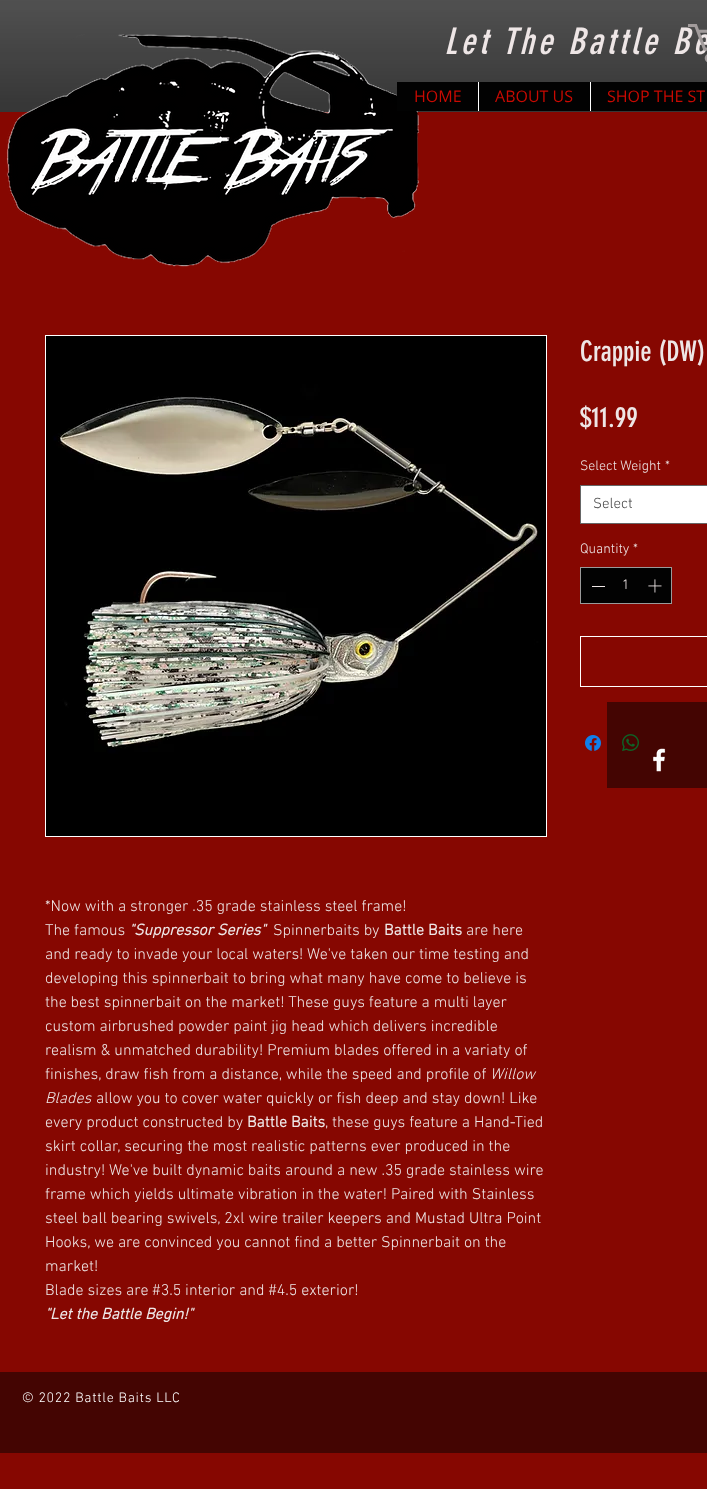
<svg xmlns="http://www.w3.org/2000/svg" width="707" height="1489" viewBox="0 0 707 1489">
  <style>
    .t1 { font: italic 36px 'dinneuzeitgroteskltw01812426'; letter-spacing: 3.6px; fill: #eee6e6; }
    .t2 { font: 16px Open Sans; fill: #c90a02; }
    .t3 { font: 28px 'dinneuzeitgroteskltw01812426'; fill: #eee6e6; }
    .t4 { font: 300 14px 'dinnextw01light'; fill: #eee6e6; }
    .t5 { font: 300 15px 'dinnextw01light'; fill: #444; }
    .t6 { font: 300 16px 'dinnextw01light'; fill: #eee6e6; }
    .t7 { font: italic bold 16px 'dinnextw01light'; fill: #eee6e6; }
    .t8 { font: bold 16px 'dinnextw01light'; fill: #eee6e6; }
    .t9 { font: italic 300 16px 'dinnextw01light'; fill: #eee6e6; }
    .t10 { font: 300 14px 'dinnextw01light'; letter-spacing: 0.7px; fill: #fff; }
  </style>
  <rect width="100%" height="100%" fill="#860701"/>
  <rect x="0" y="0" width="707" height="112" fill="#141414"/>
  <image x="0" y="0" width="707" height="112" href="images/2.png"/>
  <text x="444" y="54" class="t1">Let The Battle Be</text>
  <image x="688" y="24" width="19" height="38" href="images/1.png"/>
  <image x="6" y="34" width="413" height="233" href="images/3.png"/>
  <rect x="397" y="82" width="310" height="29" fill="#020202"/>
  <text x="414" y="102" class="t2">HOME</text>
  <rect x="478" y="82" width="1" height="29" fill="#fff"/>
  <text x="495" y="102" class="t2">ABOUT US</text>
  <rect x="590" y="82" width="1" height="29" fill="#fff"/>
  <text x="607" y="102" class="t2">SHOP THE ST</text>
  <text x="580" y="361" class="t3">Crappie (DW)</text>
  <text x="580" y="427" class="t3">$11.99</text>
  <text x="580" y="470" class="t4">Select Weight</text>
  <text x="665" y="470" class="t4">*</text>
  <rect x="580.5" y="485.5" width="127" height="38" fill="#fff" stroke="#666"/>
  <text x="593" y="508" class="t5">Select</text>
  <text x="580" y="553" class="t4">Quantity</text>
  <text x="633" y="553" class="t4">*</text>
  <rect x="580.5" y="567.5" width="91" height="36" fill="#020202" stroke="#9a9a9a"/>
  <rect x="592" y="586" width="13" height="1" fill="#eee6e6"/>
  <text x="622" y="589" class="t4">1</text>
  <image x="648" y="579" width="14" height="14" href="images/4.png"/>
  <rect x="580.5" y="636.5" width="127" height="50" fill="none" stroke="#fff"/>
  <image x="585" y="735" width="16" height="16" href="images/5.png"/>
  <rect x="607" y="702" width="100" height="86" fill="#440502"/>
  <image x="622" y="734" width="17" height="17" href="images/6.png"/>
  <rect x="45.5" y="335.5" width="501" height="501" fill="none" stroke="#fff"/>
  <image x="46" y="336" width="500" height="500" href="images/7.png"/>
  <text x="45" y="911" class="t6">*Now with a stronger .35 grade stainless steel frame!</text>
  <text x="45" y="935" class="t6">The famous</text>
  <text x="129" y="935" class="t7">"Suppressor Series"</text>
  <text x="273" y="935" class="t6">Spinnerbaits by</text>
  <text x="384" y="935" class="t8">Battle Baits</text>
  <text x="466" y="935" class="t6">are here</text>
  <text x="45" y="959" class="t6">and ready to invade your local waters! We've taken our time testing and</text>
  <text x="45" y="983" class="t6">developing this spinnerbait to bring what many have come to believe is</text>
  <text x="45" y="1007" class="t6">the best spinnerbait on the market! These guys feature a multi layer</text>
  <text x="45" y="1031" class="t6">custom airbrushed powder paint jig head which delivers incredible</text>
  <text x="45" y="1055" class="t6">realism &amp; unmatched durability! Premium blades offered in a variaty of</text>
  <text x="45" y="1079" class="t6">finishes, draw fish from a distance, while the speed and profile of</text>
  <text x="490" y="1079" class="t9">Willow</text>
  <text x="45" y="1103" class="t9">Blades</text>
  <text x="96" y="1103" class="t6">allow you to cover water quickly or fish deep and stay down! Like</text>
  <text x="45" y="1127" class="t6">every product constructed by</text>
  <text x="247" y="1127" class="t8">Battle Baits</text>
  <text x="325" y="1127" class="t6">, these guys feature a Hand-Tied</text>
  <text x="45" y="1151" class="t6">skirt collar, securing the most realistic patterns ever produced in the</text>
  <text x="45" y="1175" class="t6">industry! We've built dynamic baits around a new .35 grade stainless wire</text>
  <text x="45" y="1199" class="t6">frame which yields ultimate vibration in the water! Paired with Stainless</text>
  <text x="45" y="1223" class="t6">steel ball bearing swivels, 2xl wire trailer keepers and Mustad Ultra Point</text>
  <text x="45" y="1247" class="t6">Hooks, we are convinced you cannot find a better Spinnerbait on the</text>
  <text x="45" y="1271" class="t6">market!</text>
  <text x="45" y="1295" class="t6">Blade sizes are #3.5 interior and #4.5 exterior!</text>
  <text x="45" y="1319" class="t7">"Let the Battle Begin!"</text>
  <image x="653" y="748" width="13" height="24" href="images/8.png"/>
  <rect x="0" y="1372" width="707" height="81" fill="#440502"/>
  <text x="22" y="1402" class="t10">© 2022 Battle Baits LLC</text>
</svg>
